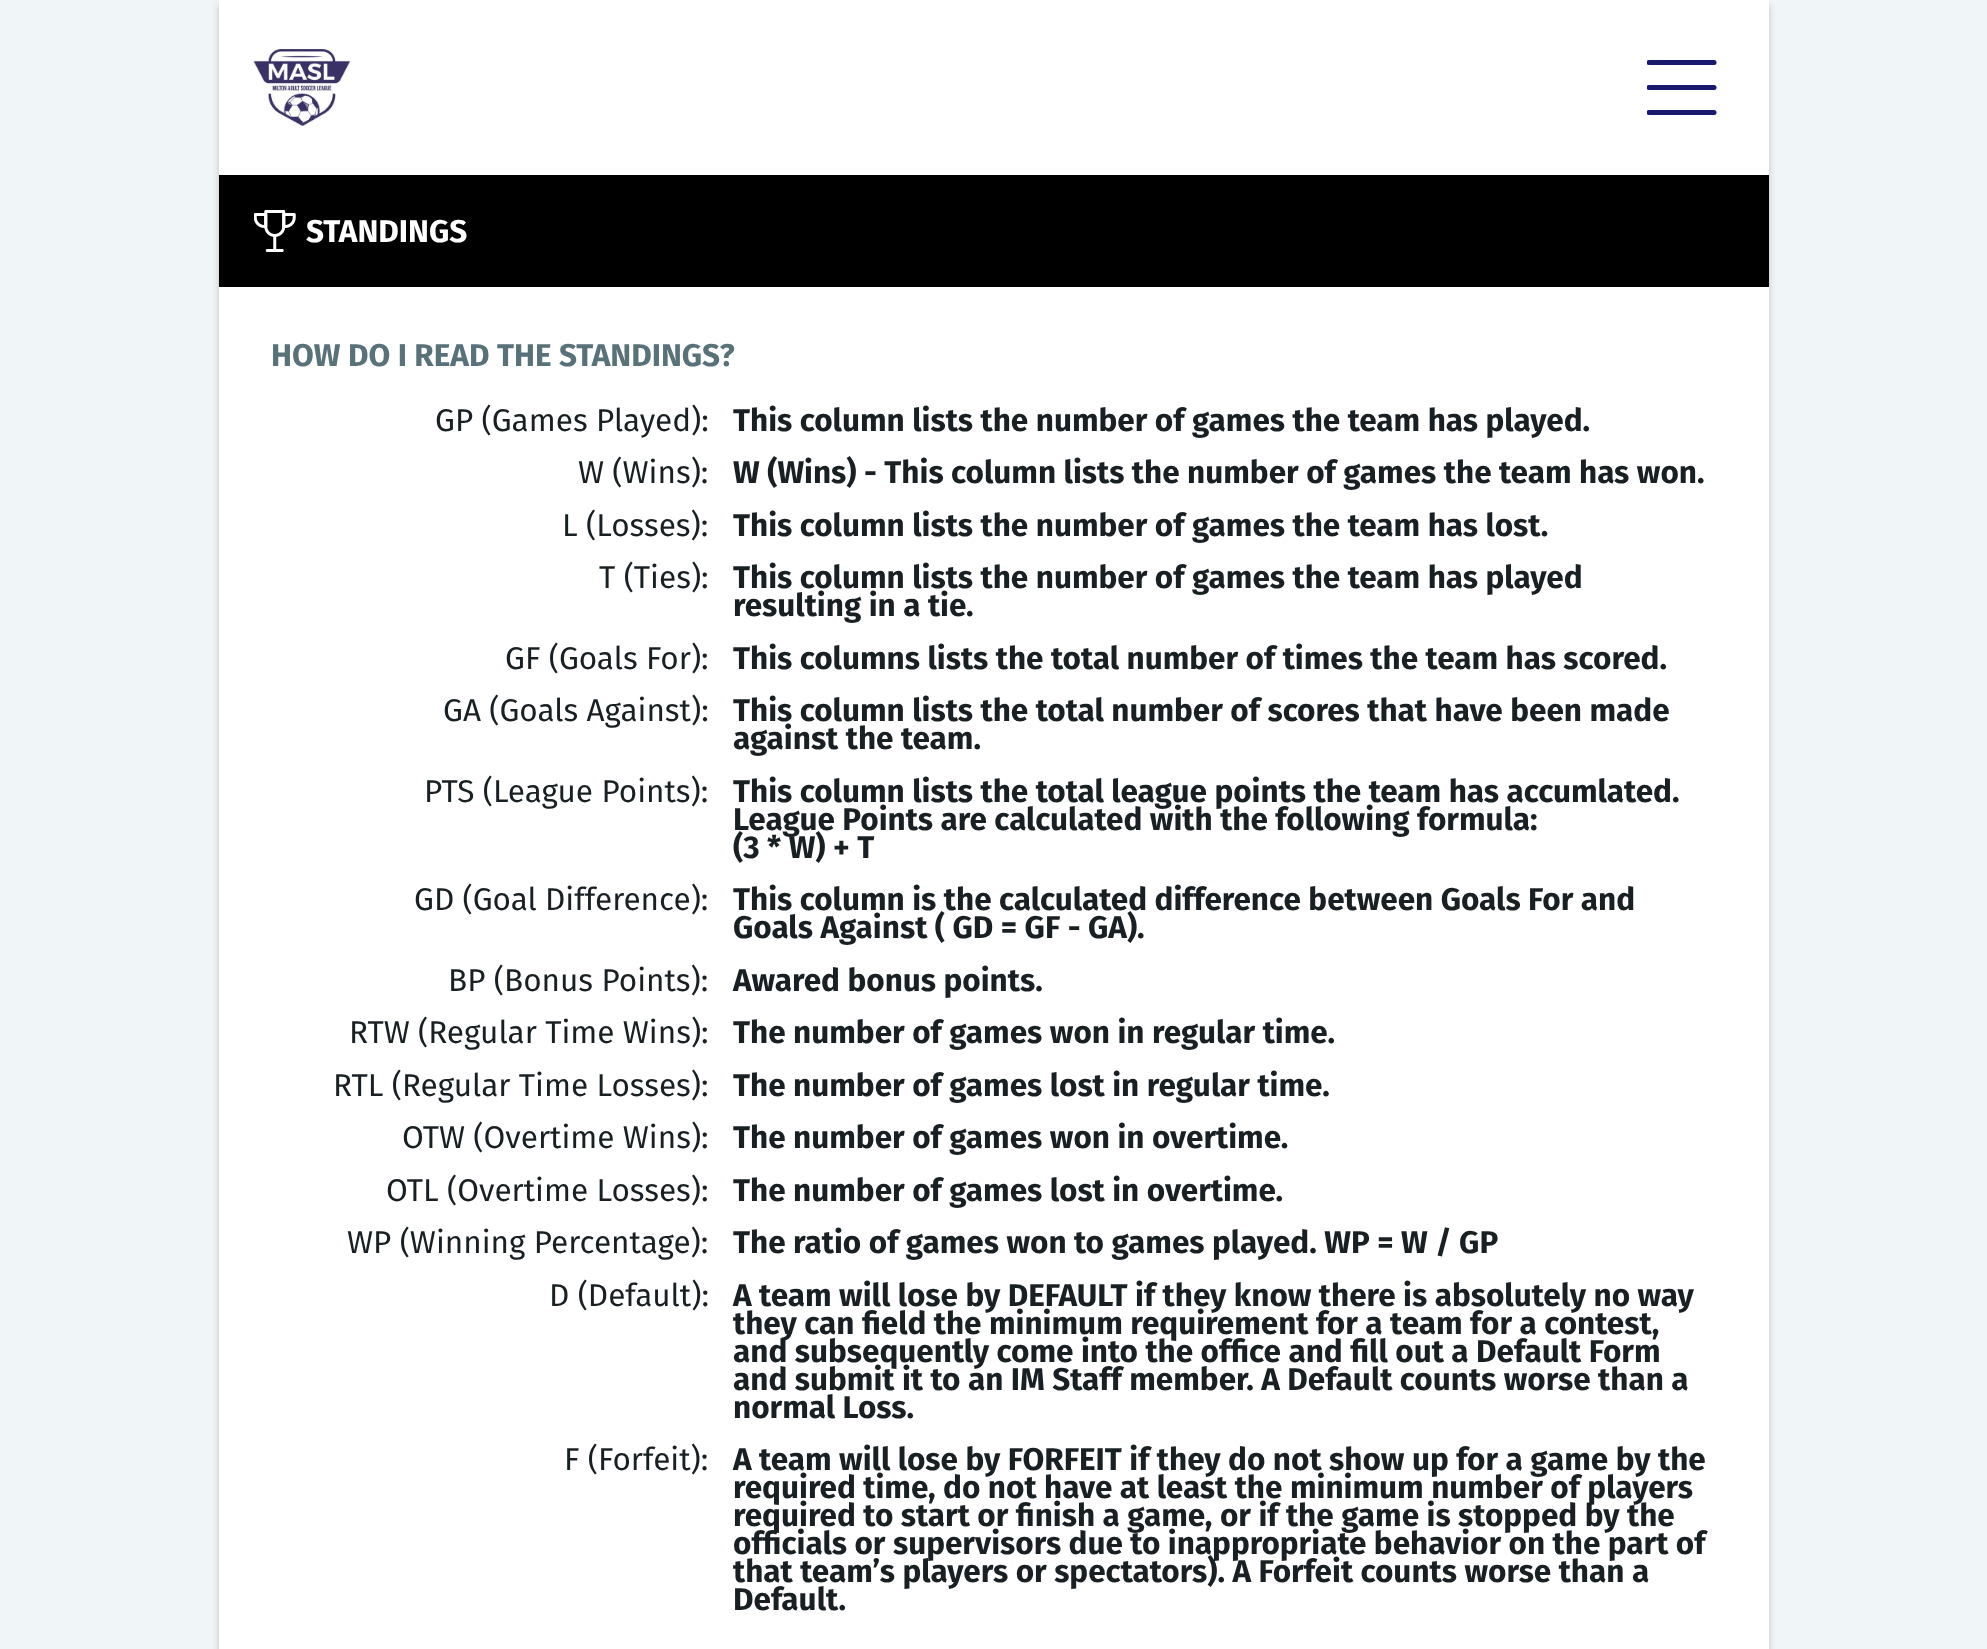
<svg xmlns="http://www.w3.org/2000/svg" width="1987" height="1649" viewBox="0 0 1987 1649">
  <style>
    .t1 { font: bold 31.5px Fira Sans; fill: #fff; }
    .t2 { font: bold 31.5px Fira Sans; fill: #597179; }
    .t3 { font: 31.5px Fira Sans; fill: #182023; }
    .t4 { font: bold 31.5px Fira Sans; fill: #182023; }
  </style>
  <defs>
    <clipPath id="clip1"><rect x="1647" y="53" width="70" height="70"/></clipPath>
  </defs>
  <rect width="100%" height="100%" fill="#f0f6f8"/>
  <rect x="219" y="5" width="1550" height="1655" fill="#0000001a" filter="blur(3.5px)"/>
  <rect x="219" y="5" width="1550" height="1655" fill="#0000001a" filter="blur(3.5px)"/>
  <rect x="219" y="0" width="1550" height="175" fill="#fff"/>
  <image x="253" y="49" width="97" height="77" href="images/1.png"/>
  <g clip-path="url(#clip1)">
    <path d="M1714 62.5H1649" fill="none" stroke="#191970" stroke-width="5" stroke-linecap="round" stroke-linejoin="round"/>
    <path d="M1714 87.5H1649" fill="none" stroke="#191970" stroke-width="5" stroke-linecap="round" stroke-linejoin="round"/>
    <path d="M1714 112.5H1649" fill="none" stroke="#191970" stroke-width="5" stroke-linecap="round" stroke-linejoin="round"/>
  </g>
  <rect x="219" y="287" width="1550" height="1362" fill="#fff"/>
  <rect x="219" y="175" width="1550" height="112" fill="#000"/>
  <image x="254" y="210" width="42" height="42" href="images/2.png"/>
  <text x="306" y="242" class="t1">STANDINGS</text>
  <text x="271" y="366" class="t2">HOW DO I READ THE STANDINGS?</text>
  <text x="435" y="431" class="t3">GP (Games Played):</text>
  <text x="733" y="431" class="t4">This column lists the number of games the team has played.</text>
  <text x="578" y="483" class="t3">W (Wins):</text>
  <text x="733" y="483" class="t4">W (Wins) - This column lists the number of games the team has won.</text>
  <text x="562" y="536" class="t3">L (Losses):</text>
  <text x="733" y="536" class="t4">This column lists the number of games the team has lost.</text>
  <text x="599" y="588" class="t3">T (Ties):</text>
  <text x="733" y="588" class="t4">This column lists the number of games the team has played</text>
  <text x="733" y="616" class="t4">resulting in a tie.</text>
  <text x="505" y="669" class="t3">GF (Goals For):</text>
  <text x="733" y="669" class="t4">This columns lists the total number of times the team has scored.</text>
  <text x="443" y="721" class="t3">GA (Goals Against):</text>
  <text x="733" y="721" class="t4">This column lists the total number of scores that have been made</text>
  <text x="733" y="749" class="t4">against the team.</text>
  <text x="424" y="802" class="t3">PTS (League Points):</text>
  <text x="733" y="802" class="t4">This column lists the total league points the team has accumlated.</text>
  <text x="733" y="830" class="t4">League Points are calculated with the following formula:</text>
  <text x="733" y="858" class="t4">(3 * W) + T</text>
  <text x="414" y="910" class="t3">GD (Goal Difference):</text>
  <text x="733" y="910" class="t4">This column is the calculated difference between Goals For and</text>
  <text x="733" y="938" class="t4">Goals Against ( GD = GF - GA).</text>
  <text x="448" y="991" class="t3">BP (Bonus Points):</text>
  <text x="733" y="991" class="t4">Awared bonus points.</text>
  <text x="349" y="1043" class="t3">RTW (Regular Time Wins):</text>
  <text x="733" y="1043" class="t4">The number of games won in regular time.</text>
  <text x="333" y="1096" class="t3">RTL (Regular Time Losses):</text>
  <text x="733" y="1096" class="t4">The number of games lost in regular time.</text>
  <text x="402" y="1148" class="t3">OTW (Overtime Wins):</text>
  <text x="733" y="1148" class="t4">The number of games won in overtime.</text>
  <text x="386" y="1201" class="t3">OTL (Overtime Losses):</text>
  <text x="733" y="1201" class="t4">The number of games lost in overtime.</text>
  <text x="347" y="1253" class="t3">WP (Winning Percentage):</text>
  <text x="733" y="1253" class="t4">The ratio of games won to games played. WP = W / GP</text>
  <text x="549" y="1306" class="t3">D (Default):</text>
  <text x="733" y="1306" class="t4">A team will lose by DEFAULT if they know there is absolutely no way</text>
  <text x="733" y="1334" class="t4">they can field the minimum requirement for a team for a contest,</text>
  <text x="733" y="1362" class="t4">and subsequently come into the office and fill out a Default Form</text>
  <text x="733" y="1390" class="t4">and submit it to an IM Staff member. A Default counts worse than a</text>
  <text x="733" y="1418" class="t4">normal Loss.</text>
  <text x="564" y="1470" class="t3">F (Forfeit):</text>
  <text x="733" y="1470" class="t4">A team will lose by FORFEIT if they do not show up for a game by the</text>
  <text x="733" y="1498" class="t4">required time, do not have at least the minimum number of players</text>
  <text x="733" y="1526" class="t4">required to start or finish a game, or if the game is stopped by the</text>
  <text x="733" y="1554" class="t4">officials or supervisors due to inappropriate behavior on the part of</text>
  <text x="733" y="1582" class="t4">that team’s players or spectators). A Forfeit counts worse than a</text>
  <text x="733" y="1610" class="t4">Default.</text>
</svg>
